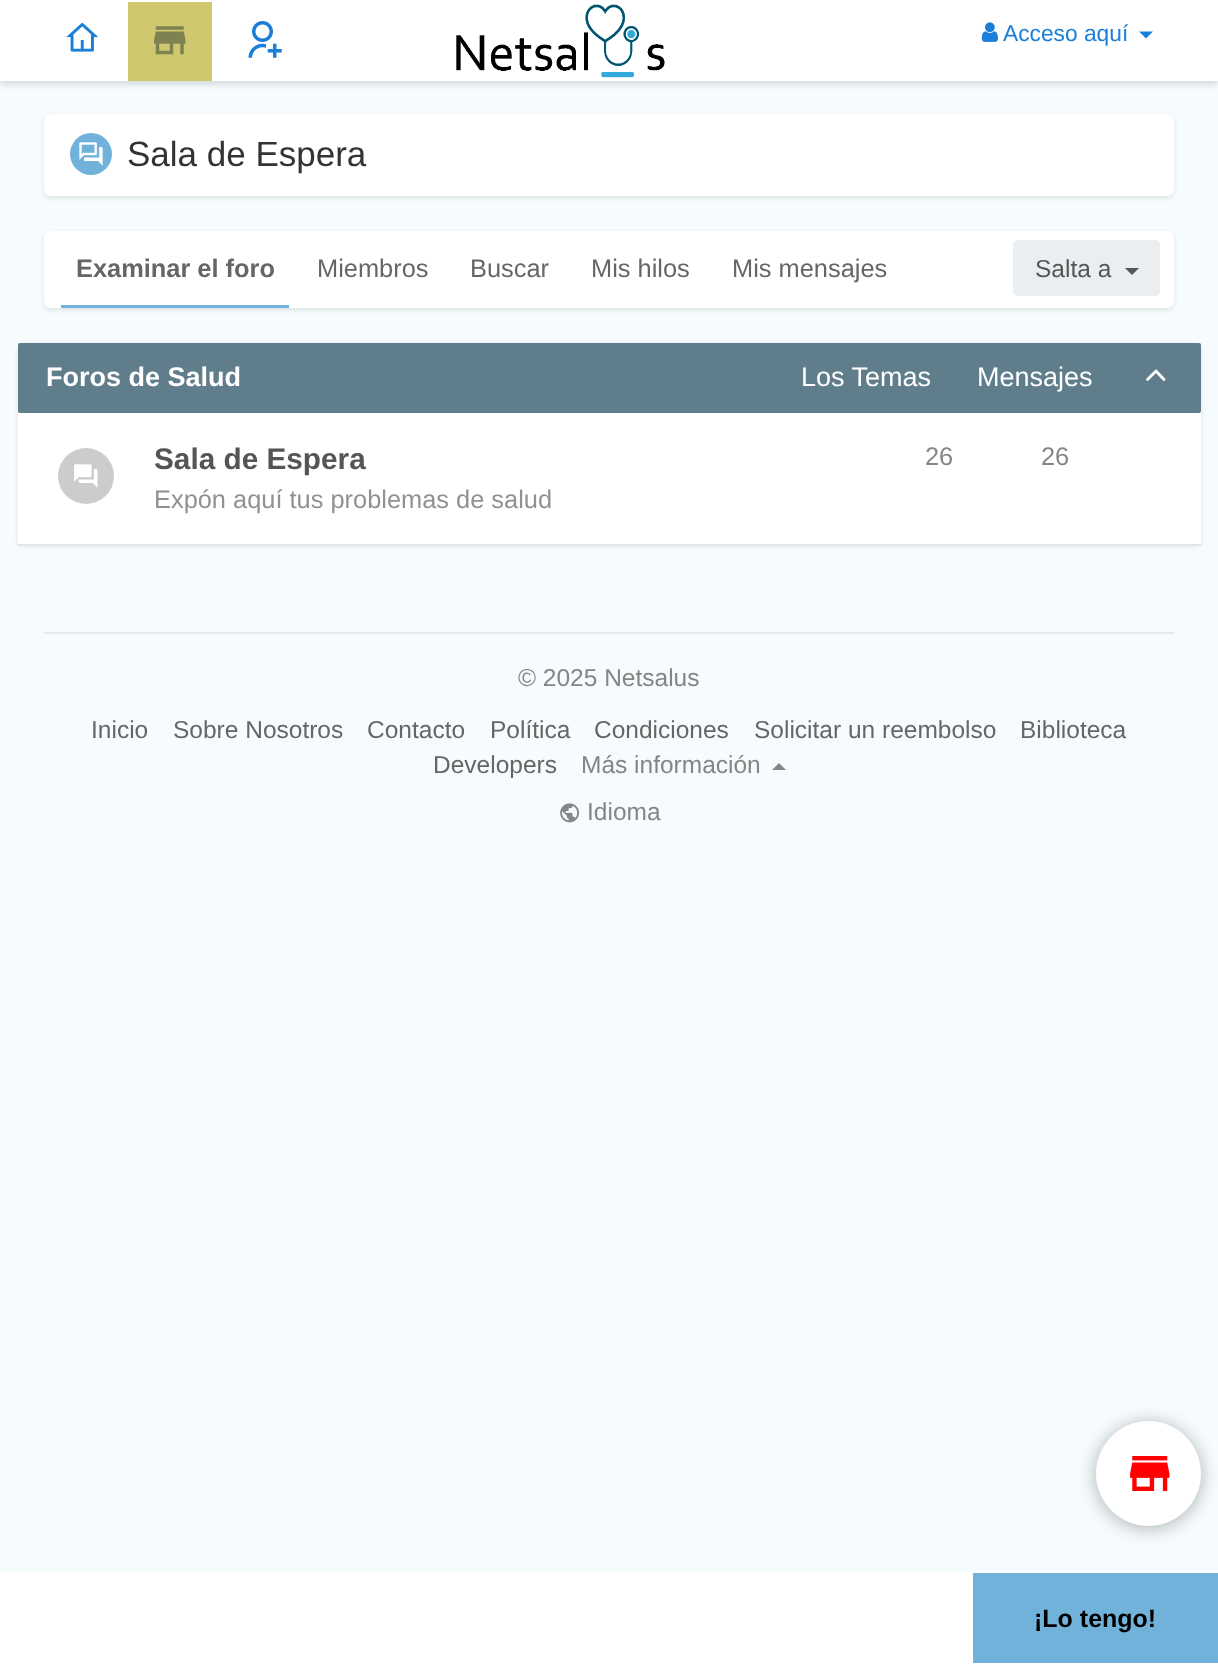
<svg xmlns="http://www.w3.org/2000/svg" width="1218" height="1665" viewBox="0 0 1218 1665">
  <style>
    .t1 { font: 22.75px Liberation Sans; fill: #1a7fd8; }
    .t2 { font: 35px Liberation Sans; fill: #333; }
    .t3 { font: bold 25.4px Liberation Sans; fill: #666; }
    .t4 { font: 25.4px Liberation Sans; fill: #666; }
    .t5 { font: 24.5px Liberation Sans; fill: #555; }
    .t6 { font: bold 27px Liberation Sans; fill: #fff; }
    .t7 { font: 27px Liberation Sans; fill: #fff; }
    .t8 { font: bold 29.75px Liberation Sans; fill: #555; }
    .t9 { font: 25.4px Liberation Sans; fill: #919191; }
    .t10 { font: 25.4px Liberation Sans; fill: #858585; }
    .t11 { font: 24.5px Liberation Sans; fill: #858585; }
    .t12 { font: 24.5px Liberation Sans; fill: #666; }
    .t13 { font: bold 25px Liberation Sans; fill: #000; }
  </style>
  <rect width="100%" height="100%" fill="#f6fcfe"/>
  <rect x="0" y="4" width="1218" height="80" fill="#00000026" filter="blur(3.5px)"/>
  <rect x="0" y="0" width="1218" height="81" fill="#fff"/>
  <image x="66" y="23" width="33" height="29" href="images/1.png"/>
  <rect x="128" y="2" width="84" height="79" fill="#cec76e"/>
  <image x="154" y="26" width="32" height="29" href="images/2.png"/>
  <image x="248" y="21" width="34" height="37" href="images/3.png"/>
  <image x="456" y="4" width="209" height="74" href="images/4.png"/>
  <image x="981" y="22" width="17" height="20" href="images/5.png"/>
  <text x="1003" y="41" class="t1">Acceso aquí</text>
  <path d="M1139 31.5H1153L1146 38.5Z" fill="#1a7fd8"/>
  <rect x="1096" y="1423" width="105" height="105" rx="52.5" fill="#0000004d" filter="blur(9px)"/>
  <circle cx="1148.5" cy="1473.5" r="52.5" fill="#fff"/>
  <image x="1130" y="1456" width="40" height="35" href="images/6.png"/>
  <rect x="44" y="116" width="1130" height="82" rx="7" fill="#0000001a" filter="blur(2.5px)"/>
  <rect x="44" y="114" width="1130" height="82" rx="7" fill="#fff"/>
  <circle cx="91" cy="154" r="21" fill="#70b2d9"/>
  <image x="79" y="142" width="24" height="24" href="images/7.png"/>
  <text x="127" y="166" class="t2">Sala de Espera</text>
  <rect x="44" y="233" width="1130" height="77" rx="7" fill="#0000001a" filter="blur(2.5px)"/>
  <rect x="44" y="231" width="1130" height="77" rx="7" fill="#fff"/>
  <rect x="61" y="305" width="228" height="3" fill="#70b2d9"/>
  <text x="76" y="277" class="t3">Examinar el foro</text>
  <text x="317" y="277" class="t4">Miembros</text>
  <text x="470" y="277" class="t4">Buscar</text>
  <text x="591" y="277" class="t4">Mis hilos</text>
  <text x="732" y="277" class="t4">Mis mensajes</text>
  <rect x="1013" y="240" width="147" height="56" rx="5" fill="#ebeef0"/>
  <text x="1035" y="277" class="t5">Salta a</text>
  <path d="M1125 268H1139L1132 275Z" fill="#555"/>
  <rect x="18" y="345" width="1183" height="201" rx="7" fill="#0000001a" filter="blur(2.5px)"/>
  <rect x="17" y="412" width="1184" height="133" fill="none" stroke="#f1f1f1" stroke-width="2"/>
  <rect x="18" y="343" width="1183" height="70" rx="2" fill="#607d8b"/>
  <text x="46" y="386" class="t6">Foros de Salud</text>
  <text x="801" y="386" class="t7">Los Temas</text>
  <text x="977" y="386" class="t7">Mensajes</text>
  <path d="M1164 379.5L1156 371L1147.5 379.5" fill="none" stroke="#fff" stroke-width="2.8" stroke-linecap="round" stroke-linejoin="round"/>
  <path d="M18 544V546H1201V415H1200V544Z" fill="#e3e4e8"/>
  <rect x="18" y="413" width="1183" height="131" fill="#fff"/>
  <circle cx="86" cy="476" r="28" fill="#ccc"/>
  <image x="74" y="464" width="24" height="24" href="images/8.png"/>
  <text x="154" y="469" class="t8">Sala de Espera</text>
  <text x="154" y="508" class="t9">Expón aquí tus problemas de salud</text>
  <text x="925" y="465" class="t10">26</text>
  <text x="1041" y="465" class="t10">26</text>
  <rect x="44" y="632" width="1130" height="2" fill="#e9e9e9"/>
  <text x="518" y="686" class="t11">© 2025 Netsalus</text>
  <text x="91" y="738" class="t12">Inicio</text>
  <text x="173" y="738" class="t12">Sobre Nosotros</text>
  <text x="367" y="738" class="t12">Contacto</text>
  <text x="490" y="738" class="t12">Política</text>
  <text x="594" y="738" class="t12">Condiciones</text>
  <text x="754" y="738" class="t12">Solicitar un reembolso</text>
  <text x="1020" y="738" class="t12">Biblioteca</text>
  <text x="433" y="773" class="t12">Developers</text>
  <text x="581" y="773" class="t11">Más información</text>
  <path d="M786 770H772L779 763Z" fill="#858585"/>
  <image x="560" y="803" width="20" height="20" href="images/9.png"/>
  <text x="587" y="820" class="t11">Idioma</text>
  <rect x="0" y="1572" width="1218" height="93" fill="#fff"/>
  <rect x="973" y="1573" width="245" height="90" fill="#70b2d9"/>
  <text x="1034" y="1627" class="t13">¡Lo tengo!</text>
</svg>
